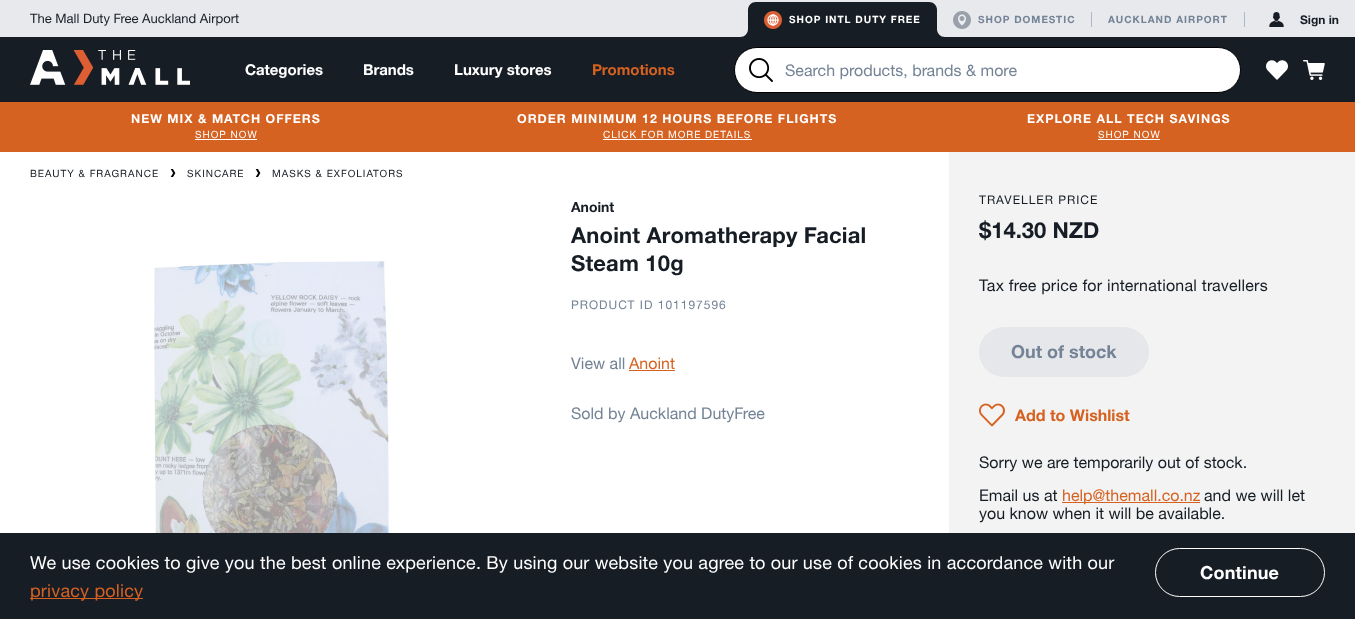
<svg xmlns="http://www.w3.org/2000/svg" width="1355" height="619" viewBox="0 0 1355 619">
  <style>
    .t1 { font: 13px Helvetica Neue; fill: #171d25; }
    .t2 { font: bold 10px Helvetica Neue; letter-spacing: 1px; fill: #fff; }
    .t3 { font: bold 10px Helvetica Neue; letter-spacing: 1px; fill: #748396; }
    .t4 { font: bold 12px Helvetica Neue; fill: #171d25; }
    .t5 { font: bold 15px Helvetica Neue; fill: #fff; }
    .t6 { font: bold 15px Helvetica Neue; fill: #d66222; }
    .t7 { font: 16px Helvetica Neue; fill: #748396; }
    .t8 { font: bold 12.4px Helvetica Neue; letter-spacing: 1px; fill: #fff; }
    .t9 { font: 10px Helvetica Neue; letter-spacing: 1px; fill: #fff; }
    .t10 { font: 10px Helvetica Neue; letter-spacing: 1px; fill: #171d25; }
    .t11 { font: bold 14px Helvetica Neue; fill: #171d25; }
    .t12 { font: bold 22px Helvetica Neue; letter-spacing: 0.2px; fill: #171d25; }
    .t13 { font: 12px Helvetica Neue; letter-spacing: 1px; fill: #748396; }
    .t14 { font: 16px Helvetica Neue; fill: #d66222; }
    .t15 { font: 12px Helvetica Neue; letter-spacing: 1px; fill: #171d25; }
    .t16 { font: bold 22px Helvetica Neue; fill: #171d25; }
    .t17 { font: 16px Helvetica Neue; letter-spacing: 0.2px; fill: #171d25; }
    .t18 { font: bold 18px Helvetica Neue; fill: #748396; }
    .t19 { font: bold 16px Helvetica Neue; fill: #d66222; }
    .t20 { font: 16px Helvetica Neue; fill: #171d25; }
    .t21 { font: 18px Helvetica Neue; letter-spacing: 0.18px; fill: #fff; }
    .t22 { font: 18px Helvetica Neue; letter-spacing: 0.18px; fill: #d66222; }
    .t23 { font: bold 18px Helvetica Neue; letter-spacing: 0.18px; fill: #fff; }
  </style>
  <rect width="100%" height="100%" fill="#fff"/>
  <rect x="0" y="0" width="1355" height="37" fill="#e8e9ed"/>
  <text x="30" y="23" class="t1">The Mall Duty Free Auckland Airport</text>
  <rect x="740" y="29" width="8" height="8" fill="#171d25"/>
  <path d="M740 2H748V29C748 33.5 744.5 37 740 37Z" fill="#e8e9ed"/>
  <path d="M756 2H929C933.5 2 937 5.5 937 10V37H748V10C748 5.5 751.5 2 756 2Z" fill="#171d25"/>
  <image x="764" y="11" width="18" height="18" href="images/1.png"/>
  <text x="789" y="23" class="t2">SHOP INTL DUTY FREE</text>
  <rect x="937" y="29" width="8" height="8" fill="#171d25"/>
  <path d="M937 2H945V37C940.5 37 937 33.5 937 29Z" fill="#e8e9ed"/>
  <image x="953" y="11" width="18" height="18" href="images/2.png"/>
  <text x="978" y="23" class="t3">SHOP DOMESTIC</text>
  <rect x="1091" y="12" width="1" height="15" fill="#adb8c4"/>
  <text x="1108" y="23" class="t3">AUCKLAND AIRPORT</text>
  <rect x="1244" y="12" width="1" height="15" fill="#adb8c4"/>
  <image x="1269" y="12" width="15" height="15" href="images/3.png"/>
  <text x="1300" y="24" class="t4">Sign in</text>
  <rect x="0" y="37" width="1355" height="65" fill="#171d25"/>
  <image x="30" y="50" width="160" height="35" href="images/4.png"/>
  <text x="245" y="75" class="t5">Categories</text>
  <text x="363" y="75" class="t5">Brands</text>
  <text x="454" y="75" class="t5">Luxury stores</text>
  <text x="592" y="75" class="t6">Promotions</text>
  <rect x="734.5" y="47.5" width="506" height="45" rx="22.5" fill="#fff" stroke="#000"/>
  <image x="749" y="58" width="24" height="24" href="images/5.png"/>
  <text x="785" y="76" class="t7">Search products, brands &amp; more</text>
  <image x="1266" y="60" width="22" height="20" href="images/6.png"/>
  <image x="1303" y="60" width="22" height="20" href="images/7.png"/>
  <rect x="0" y="102" width="1355" height="50" fill="#d66222"/>
  <text x="131" y="123" class="t8">NEW MIX &amp; MATCH OFFERS</text>
  <text x="195" y="138" class="t9">SHOP NOW</text>
  <rect x="195" y="139" width="62" height="1" fill="#fff"/>
  <text x="517" y="123" class="t8">ORDER MINIMUM 12 HOURS BEFORE FLIGHTS</text>
  <text x="603" y="138" class="t9">CLICK FOR MORE DETAILS</text>
  <rect x="603" y="139" width="149" height="1" fill="#fff"/>
  <text x="1027" y="123" class="t8">EXPLORE ALL TECH SAVINGS</text>
  <text x="1098" y="138" class="t9">SHOP NOW</text>
  <rect x="1098" y="139" width="62" height="1" fill="#fff"/>
  <text x="30" y="177" class="t10">BEAUTY &amp; FRAGRANCE</text>
  <image x="170" y="169" width="6" height="8" href="images/8.png"/>
  <text x="187" y="177" class="t10">SKINCARE</text>
  <image x="255" y="169" width="6" height="8" href="images/8.png"/>
  <text x="272" y="177" class="t10">MASKS &amp; EXFOLIATORS</text>
  <image x="154" y="261" width="235" height="272" href="images/9.png"/>
  <text x="571" y="212" class="t11">Anoint</text>
  <text x="571" y="243" class="t12">Anoint Aromatherapy Facial</text>
  <text x="571" y="271" class="t12">Steam 10g</text>
  <text x="571" y="309" class="t13">PRODUCT ID 101197596</text>
  <text x="571" y="369" class="t7">View all</text>
  <text x="629" y="369" class="t14">Anoint</text>
  <rect x="629" y="370" width="46" height="1" fill="#d66222"/>
  <text x="571" y="419" class="t7">Sold by Auckland DutyFree</text>
  <rect x="949" y="152" width="406" height="381" fill="#f3f3f3"/>
  <text x="979" y="204" class="t15">TRAVELLER PRICE</text>
  <text x="979" y="238" class="t16">$14.30 NZD</text>
  <text x="979" y="291" class="t17">Tax free price for international travellers</text>
  <rect x="979" y="327" width="170" height="50" rx="25" fill="#e6e7eb"/>
  <text x="1011" y="358" class="t18">Out of stock</text>
  <image x="979" y="403" width="26" height="24" href="images/10.png"/>
  <text x="1015" y="421" class="t19">Add to Wishlist</text>
  <text x="979" y="468" class="t20">Sorry we are temporarily out of stock.</text>
  <text x="979" y="501" class="t20">Email us at</text>
  <rect x="1062" y="502" width="138" height="1" fill="#d66222"/>
  <text x="1062" y="501" class="t14">help@themall.co.nz</text>
  <text x="1204" y="501" class="t20">and we will let</text>
  <text x="979" y="519" class="t20">you know when it will be available.</text>
  <rect x="0" y="533" width="1355" height="86" fill="#171d25"/>
  <text x="30" y="569" class="t21">We use cookies to give you the best online experience. By using our website you agree to our use of cookies in accordance with our</text>
  <rect x="30" y="598" width="113" height="1" fill="#d66222"/>
  <text x="30" y="597" class="t22">privacy policy</text>
  <rect x="1155.5" y="548.5" width="169" height="48" rx="24" fill="none" stroke="#fff"/>
  <text x="1200" y="579" class="t23">Continue</text>
</svg>
